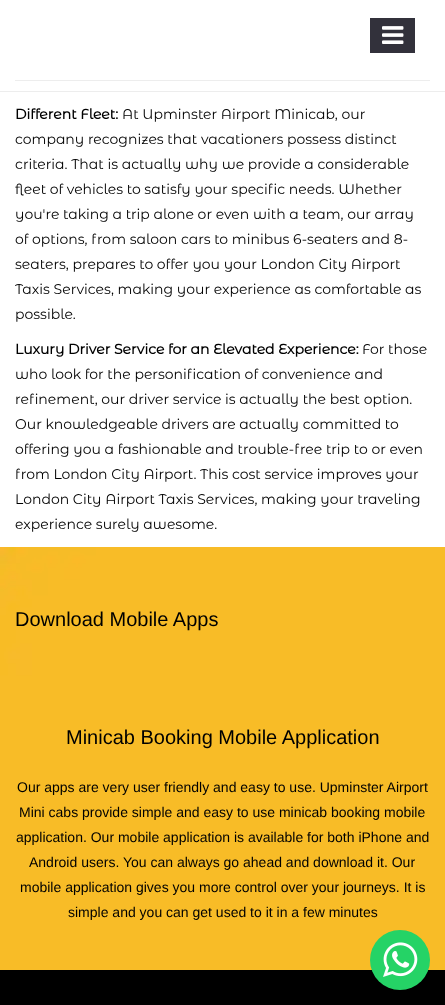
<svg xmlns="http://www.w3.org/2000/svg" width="445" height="1005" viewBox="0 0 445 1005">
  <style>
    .t1 { font: bold 14px Montserrat Alternates; fill: #000; }
    .t2 { font: 14px Montserrat Alternates; fill: #000; }
    .t3 { font: 20px Liberation Sans; fill: #000; }
    .t4 { font: 14px Liberation Sans; fill: #000; }
  </style>
  <rect width="100%" height="100%" fill="#fff"/>
  <rect x="0" y="91" width="445" height="1" fill="#ededed"/>
  <rect x="15" y="80" width="415" height="1" fill="#ededed"/>
  <rect x="370" y="18" width="45" height="35" fill="#32313b"/>
  <image x="382" y="26" width="22" height="18" href="images/1.png"/>
  <text x="15" y="119" class="t1">Different Fleet:</text>
  <text x="122" y="119" class="t2">At Upminster Airport Minicab, our</text>
  <text x="15" y="144" class="t2">company recognizes that vacationers possess distinct</text>
  <text x="15" y="169" class="t2">criteria. That is actually why we provide a considerable</text>
  <text x="15" y="194" class="t2">fleet of vehicles to satisfy your specific needs. Whether</text>
  <text x="15" y="219" class="t2">you're taking a trip alone or even with a team, our array</text>
  <text x="15" y="244" class="t2">of options, from saloon cars to minibus 6-seaters and 8-</text>
  <text x="15" y="269" class="t2">seaters, prepares to offer you your London City Airport</text>
  <text x="15" y="294" class="t2">Taxis Services, making your experience as comfortable as</text>
  <text x="15" y="319" class="t2">possible.</text>
  <text x="15" y="354" class="t1">Luxury Driver Service for an Elevated Experience:</text>
  <text x="362" y="354" class="t2">For those</text>
  <text x="15" y="379" class="t2">who look for the personification of convenience and</text>
  <text x="15" y="404" class="t2">refinement, our driver service is actually the best option.</text>
  <text x="15" y="429" class="t2">Our knowledgeable drivers are actually committed to</text>
  <text x="15" y="454" class="t2">offering you a fashionable and trouble-free trip to or even</text>
  <text x="15" y="479" class="t2">from London City Airport. This cost service improves your</text>
  <text x="15" y="504" class="t2">London City Airport Taxis Services, making your traveling</text>
  <text x="15" y="529" class="t2">experience surely awesome.</text>
  <image x="0" y="547" width="445" height="423" href="images/2.png"/>
  <text x="15" y="626" class="t3">Download Mobile Apps</text>
  <text x="66" y="744" class="t3">Minicab Booking Mobile Application</text>
  <text x="17" y="792" class="t4">Our apps are very user friendly and easy to use. Upminster Airport</text>
  <text x="19" y="817" class="t4">Mini cabs provide simple and easy to use minicab booking mobile</text>
  <text x="16" y="842" class="t4">application. Our mobile application is available for both iPhone and</text>
  <text x="29" y="867" class="t4">Android users. You can always go ahead and download it. Our</text>
  <text x="20" y="892" class="t4">mobile application gives you more control over your journeys. It is</text>
  <text x="68" y="917" class="t4">simple and you can get used to it in a few minutes</text>
  <rect x="0" y="970" width="445" height="35" fill="#000"/>
  <circle cx="400" cy="960" r="30" fill="#25d366"/>
  <image x="383" y="942" width="35" height="35" href="images/3.png"/>
</svg>
